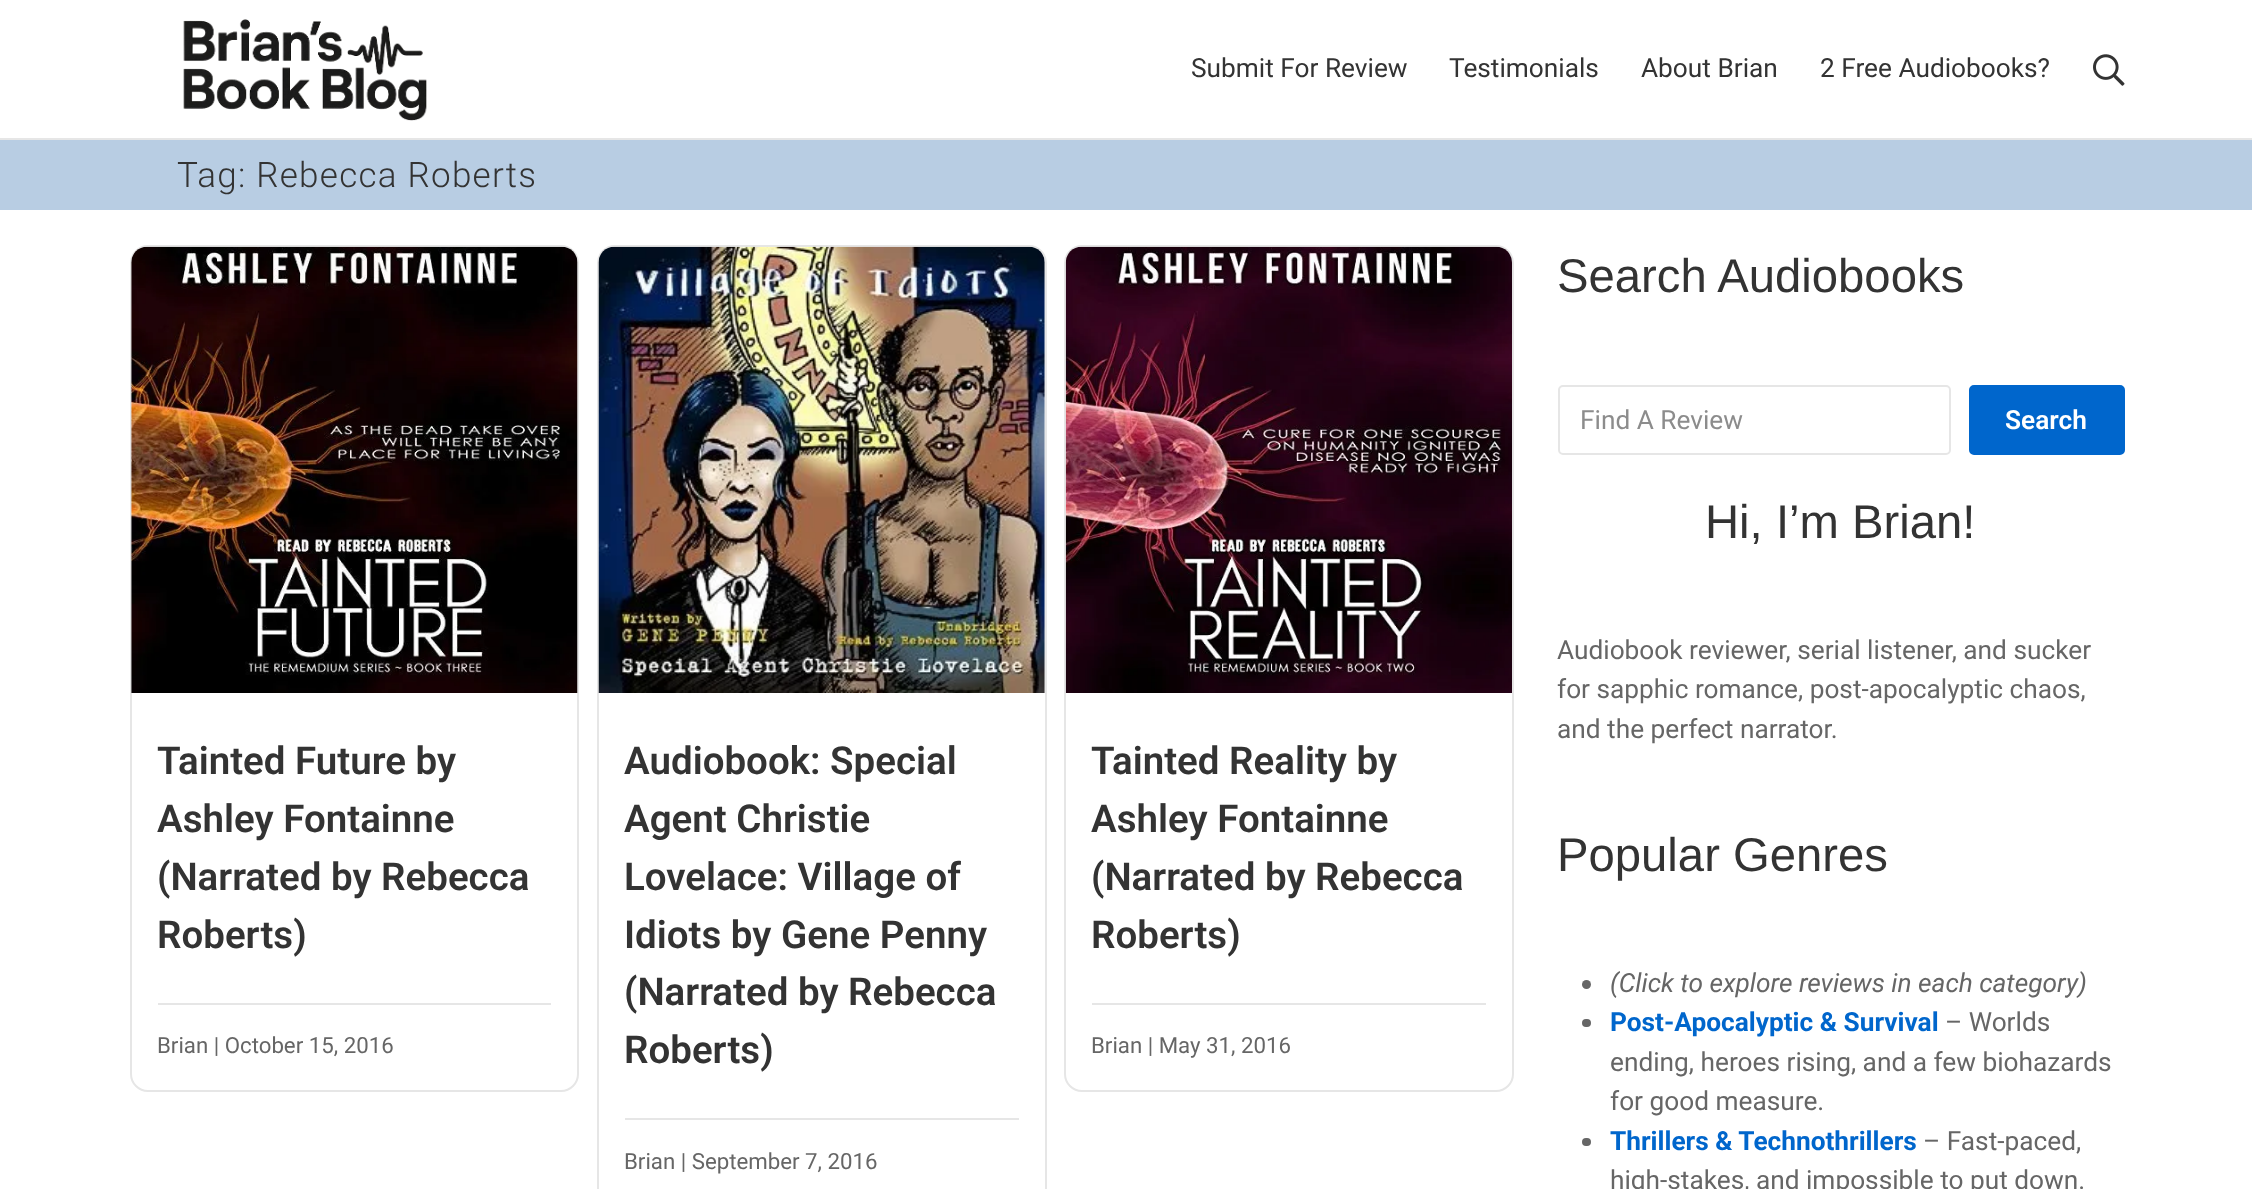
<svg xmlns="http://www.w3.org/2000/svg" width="2252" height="1189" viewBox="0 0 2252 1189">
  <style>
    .t1 { font: 26.25px Roboto; fill: #333; }
    .t2 { font: 300 35px Roboto; letter-spacing: 1.25px; fill: #333; }
    .t3 { font: 600 38.5px Roboto; fill: #333; }
    .t4 { font: 22.25px Roboto; fill: #666; }
    .t5 { font: 47.25px Liberation Sans; fill: #333; }
    .t6 { font: 26.25px Roboto; fill: #8c8c8c; }
    .t7 { font: 600 26.25px Roboto; fill: #fff; }
    .t8 { font: 26.25px Roboto; fill: #666; }
    .t9 { font: italic 26.25px Roboto; fill: #666; }
    .t10 { font: bold 26.25px Roboto; fill: #06c; }
  </style>
  <rect width="100%" height="100%" fill="#fff"/>
  <rect x="0" y="138" width="2252" height="2" fill="#e6e6e6"/>
  <image x="183" y="19" width="244" height="102" href="images/1.png"/>
  <text x="1191" y="77" class="t1">Submit For Review</text>
  <text x="1449" y="77" class="t1">Testimonials</text>
  <text x="1641" y="77" class="t1">About Brian</text>
  <text x="1820" y="77" class="t1">2 Free Audiobooks?</text>
  <image x="2093" y="54" width="32" height="32" href="images/2.png"/>
  <rect x="0" y="140" width="2252" height="70" fill="#b8cde3"/>
  <text x="177" y="187" class="t2">Tag: Rebecca Roberts</text>
  <rect x="131" y="246" width="447" height="845" rx="17" fill="none" stroke="#e6e6e6" stroke-width="2"/>
  <image x="131" y="246" width="447" height="447" href="images/3.png"/>
  <text x="157" y="774" class="t3">Tainted Future by</text>
  <text x="157" y="832" class="t3">Ashley Fontainne</text>
  <text x="157" y="890" class="t3">(Narrated by Rebecca</text>
  <text x="157" y="948" class="t3">Roberts)</text>
  <rect x="158" y="1003" width="393" height="2" fill="#e6e6e6"/>
  <text x="157" y="1053" class="t4">Brian | October 15, 2016</text>
  <rect x="598" y="246" width="448" height="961" rx="17" fill="none" stroke="#e6e6e6" stroke-width="2"/>
  <image x="598" y="246" width="447" height="447" href="images/4.png"/>
  <text x="624" y="774" class="t3">Audiobook: Special</text>
  <text x="624" y="832" class="t3">Agent Christie</text>
  <text x="624" y="890" class="t3">Lovelace: Village of</text>
  <text x="624" y="948" class="t3">Idiots by Gene Penny</text>
  <text x="624" y="1005" class="t3">(Narrated by Rebecca</text>
  <text x="624" y="1063" class="t3">Roberts)</text>
  <rect x="625" y="1118" width="394" height="2" fill="#e6e6e6"/>
  <text x="624" y="1169" class="t4">Brian | September 7, 2016</text>
  <rect x="1065" y="246" width="448" height="845" rx="17" fill="none" stroke="#e6e6e6" stroke-width="2"/>
  <image x="1065" y="246" width="447" height="447" href="images/5.png"/>
  <text x="1091" y="774" class="t3">Tainted Reality by</text>
  <text x="1091" y="832" class="t3">Ashley Fontainne</text>
  <text x="1091" y="890" class="t3">(Narrated by Rebecca</text>
  <text x="1091" y="948" class="t3">Roberts)</text>
  <rect x="1092" y="1003" width="394" height="2" fill="#e6e6e6"/>
  <text x="1091" y="1053" class="t4">Brian | May 31, 2016</text>
  <text x="1557" y="292" class="t5">Search Audiobooks</text>
  <rect x="1559" y="386" width="391" height="68" rx="4" fill="none" stroke="#e6e6e6" stroke-width="2"/>
  <text x="1580" y="429" class="t6">Find A Review</text>
  <rect x="1970" y="386" width="154" height="68" rx="4" fill="#06c" stroke="#06c" stroke-width="2"/>
  <text x="2005" y="429" class="t7">Search</text>
  <text x="1705" y="538" class="t5">Hi, I’m Brian!</text>
  <text x="1557" y="659" class="t8">Audiobook reviewer, serial listener, and sucker</text>
  <text x="1557" y="698" class="t8">for sapphic romance, post-apocalyptic chaos,</text>
  <text x="1557" y="738" class="t8">and the perfect narrator.</text>
  <text x="1557" y="871" class="t5">Popular Genres</text>
  <circle cx="1586.5" cy="984.5" r="4.5" fill="#666"/>
  <text x="1610" y="992" class="t9">(Click to explore reviews in each category)</text>
  <rect x="1582" y="1019" width="9" height="8" rx="4" fill="#666"/>
  <text x="1610" y="1031" class="t10">Post-Apocalyptic &amp; Survival</text>
  <text x="1945" y="1031" class="t8">– Worlds</text>
  <text x="1610" y="1071" class="t8">ending, heroes rising, and a few biohazards</text>
  <text x="1610" y="1110" class="t8">for good measure.</text>
  <rect x="1582" y="1138" width="9" height="8" rx="4" fill="#666"/>
  <text x="1610" y="1150" class="t10">Thrillers &amp; Technothrillers</text>
  <text x="1923" y="1150" class="t8">– Fast-paced,</text>
  <text x="1610" y="1189" class="t8">high-stakes, and impossible to put down.</text>
</svg>
